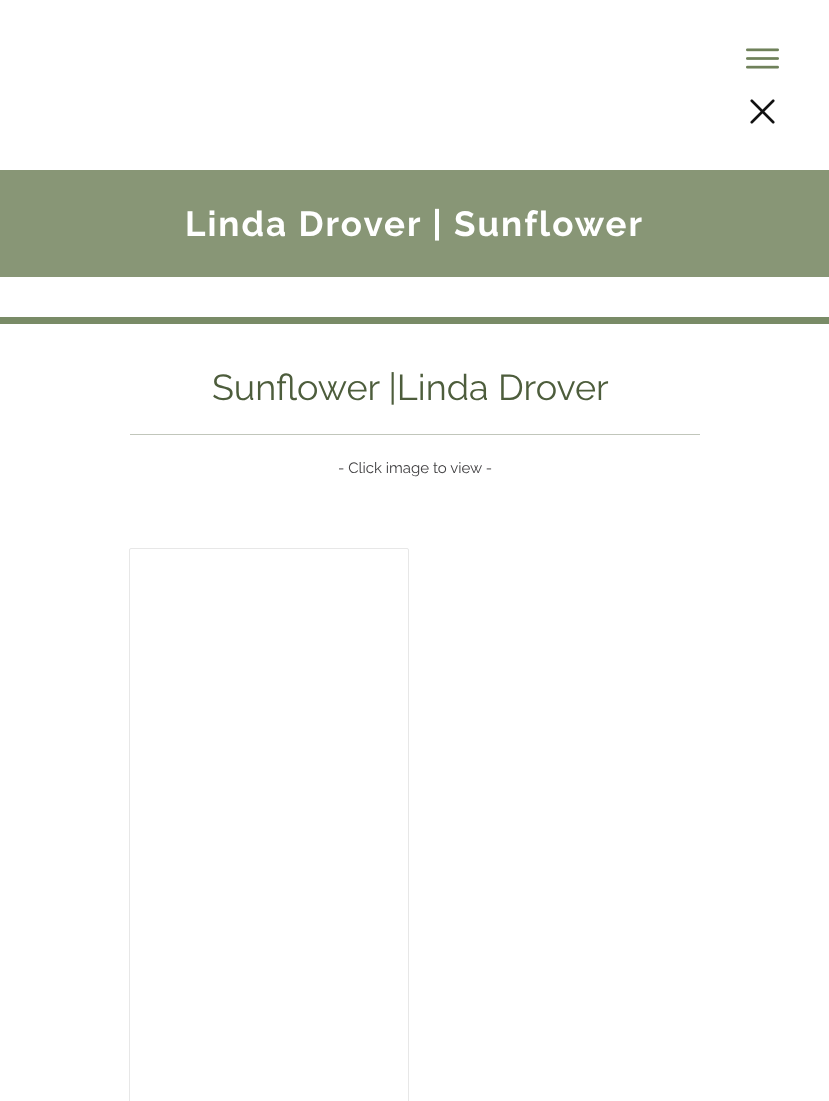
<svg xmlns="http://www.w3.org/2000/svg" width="829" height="1101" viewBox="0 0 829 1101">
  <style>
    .t1 { font: bold 35px Raleway; letter-spacing: 2px; fill: #fff; }
    .t2 { font: 36px Raleway; fill: #4d5d3c; }
    .t3 { font: 15px Raleway; fill: #414042; }
  </style>
  <rect width="100%" height="100%" fill="#fff"/>
  <rect x="0" y="170" width="829" height="107" fill="#889676"/>
  <image x="746" y="48" width="33" height="21" href="images/1.png"/>
  <image x="750" y="99" width="25" height="25" href="images/2.png"/>
  <text x="185" y="236" class="t1">Linda Drover | Sunflower</text>
  <rect x="0" y="317" width="829" height="7" fill="#798b67"/>
  <rect x="130" y="434" width="570" height="1" fill="#c1c6bb"/>
  <text x="212" y="400" class="t2">Sunflower |Linda Drover</text>
  <text x="338" y="473" class="t3">- Click image to view -</text>
  <rect x="129.5" y="548.5" width="279" height="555" rx="1.5" fill="none" stroke="#e7e7e7"/>
</svg>
